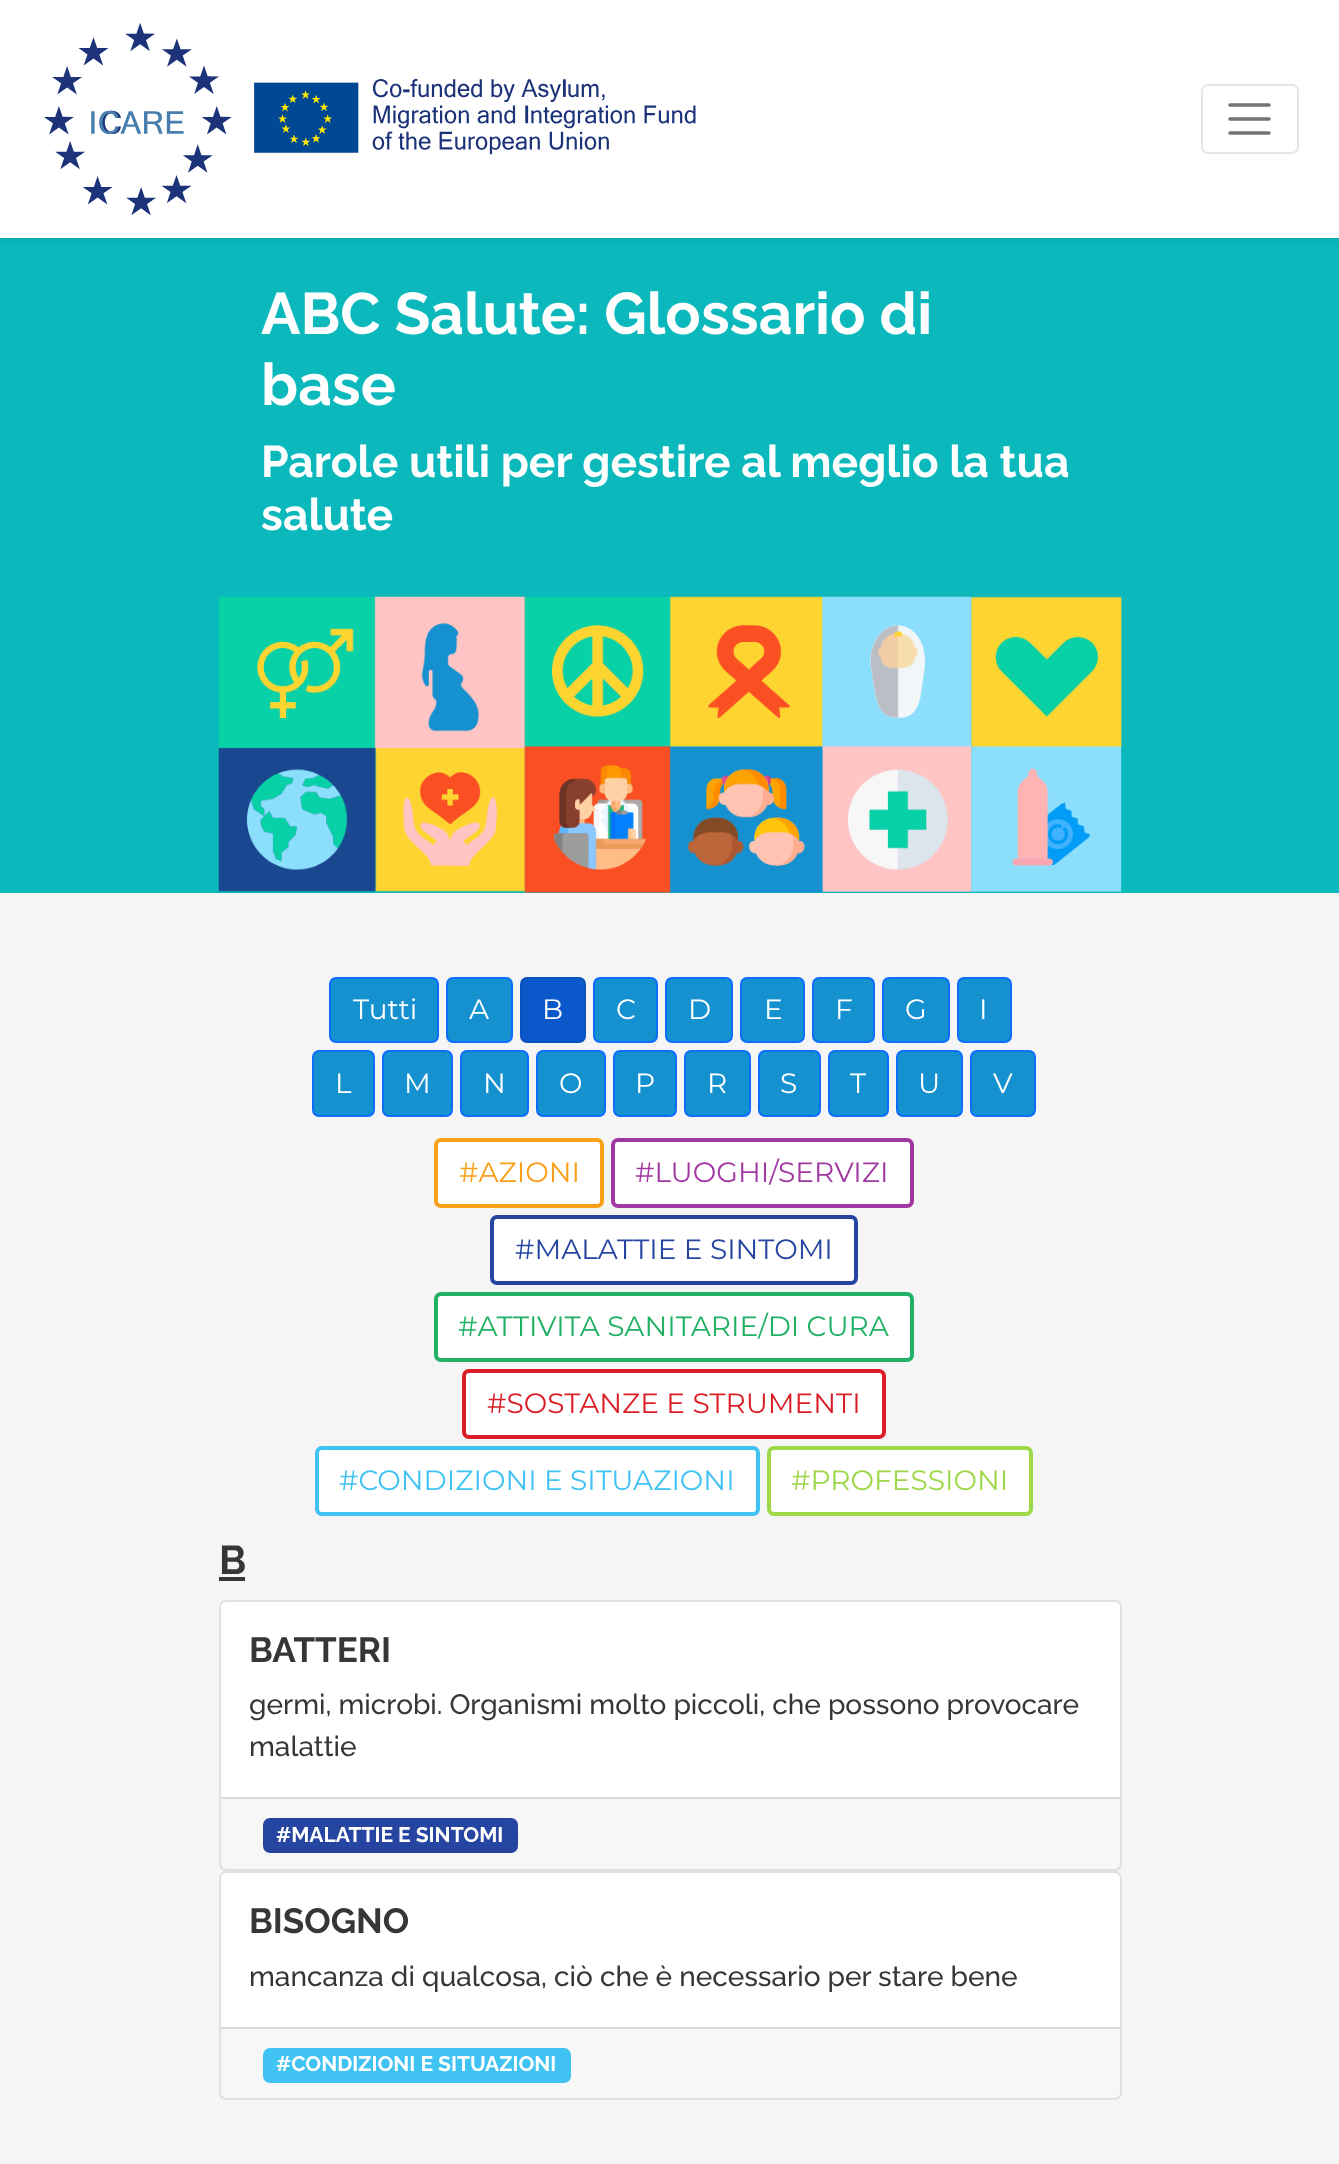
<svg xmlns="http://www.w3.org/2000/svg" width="1339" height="2164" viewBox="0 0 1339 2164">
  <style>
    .t1 { font: 100 58.6px Raleway; fill: #fff; }
    .t2 { font: 100 44.4px Raleway; fill: #fff; }
    .t3 { font: 100 28px Montserrat; fill: #fff; }
    .t4 { font: 100 28px Montserrat; fill: #f9a01a; }
    .t5 { font: 100 28px Montserrat; fill: #a138a2; }
    .t6 { font: 100 28px Montserrat; fill: #2645a1; }
    .t7 { font: 100 28px Montserrat; fill: #21b164; }
    .t8 { font: 100 28px Montserrat; fill: #db1e26; }
    .t9 { font: 100 28px Montserrat; fill: #40c2f3; }
    .t10 { font: 100 28px Montserrat; fill: #9ed748; }
    .t11 { font: 100 40px Raleway; fill: #363636; }
    .t12 { font: 100 35px Raleway; fill: #363636; }
    .t13 { font: 100 28px 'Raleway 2'; fill: #363636; }
    .t14 { font: 100 21px Raleway; fill: #fff; }
  </style>
  <rect width="100%" height="100%" fill="#f5f5f5"/>
  <rect x="0" y="238" width="1339" height="655" fill="#0bb9bc"/>
  <rect x="0" y="4" width="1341" height="238" fill="#00000012" filter="blur(3.5px)"/>
  <rect x="0" y="0" width="1339" height="238" fill="#fff"/>
  <image x="44" y="23" width="652" height="192" href="images/1.png"/>
  <rect x="1202" y="85" width="96" height="68" rx="6" fill="none" stroke="#e6e6e6" stroke-width="2"/>
  <path d="M1230 105H1269M1230 119H1269M1230 133H1269" fill="none" stroke="#737373" stroke-width="3.5" stroke-linecap="round"/>
  <text x="261" y="334" class="t1">ABC Salute: Glossario di</text>
  <text x="261" y="405" class="t1">base</text>
  <text x="261" y="477" class="t2">Parole utili per gestire al meglio la tua</text>
  <text x="261" y="530" class="t2">salute</text>
  <image x="218" y="596" width="904" height="297" href="images/2.png"/>
  <rect x="330" y="978" width="108" height="64" rx="6" fill="#1691d0" stroke="#0d6efd" stroke-width="2"/>
  <text x="353" y="1019" class="t3">Tutti</text>
  <rect x="447" y="978" width="65" height="64" rx="6" fill="#1691d0" stroke="#0d6efd" stroke-width="2"/>
  <text x="469" y="1019" class="t3">A</text>
  <rect x="521" y="978" width="64" height="64" rx="6" fill="#0a58ca" stroke="#0a53be" stroke-width="2"/>
  <text x="542" y="1019" class="t3">B</text>
  <rect x="594" y="978" width="63" height="64" rx="6" fill="#1691d0" stroke="#0d6efd" stroke-width="2"/>
  <text x="616" y="1019" class="t3">C</text>
  <rect x="666" y="978" width="66" height="64" rx="6" fill="#1691d0" stroke="#0d6efd" stroke-width="2"/>
  <text x="688" y="1019" class="t3">D</text>
  <rect x="741" y="978" width="63" height="64" rx="6" fill="#1691d0" stroke="#0d6efd" stroke-width="2"/>
  <text x="764" y="1019" class="t3">E</text>
  <rect x="813" y="978" width="61" height="64" rx="6" fill="#1691d0" stroke="#0d6efd" stroke-width="2"/>
  <text x="835" y="1019" class="t3">F</text>
  <rect x="883" y="978" width="66" height="64" rx="6" fill="#1691d0" stroke="#0d6efd" stroke-width="2"/>
  <text x="905" y="1019" class="t3">G</text>
  <rect x="958" y="978" width="53" height="64" rx="6" fill="#1691d0" stroke="#0d6efd" stroke-width="2"/>
  <text x="979" y="1019" class="t3">I</text>
  <rect x="313" y="1051" width="61" height="65" rx="6" fill="#1691d0" stroke="#0d6efd" stroke-width="2"/>
  <text x="335" y="1093" class="t3">L</text>
  <rect x="383" y="1051" width="69" height="65" rx="6" fill="#1691d0" stroke="#0d6efd" stroke-width="2"/>
  <text x="404" y="1093" class="t3">M</text>
  <rect x="461" y="1051" width="67" height="65" rx="6" fill="#1691d0" stroke="#0d6efd" stroke-width="2"/>
  <text x="483" y="1093" class="t3">N</text>
  <rect x="537" y="1051" width="68" height="65" rx="6" fill="#1691d0" stroke="#0d6efd" stroke-width="2"/>
  <text x="559" y="1093" class="t3">O</text>
  <rect x="614" y="1051" width="62" height="65" rx="6" fill="#1691d0" stroke="#0d6efd" stroke-width="2"/>
  <text x="635" y="1093" class="t3">P</text>
  <rect x="685" y="1051" width="65" height="65" rx="6" fill="#1691d0" stroke="#0d6efd" stroke-width="2"/>
  <text x="707" y="1093" class="t3">R</text>
  <rect x="759" y="1051" width="61" height="65" rx="6" fill="#1691d0" stroke="#0d6efd" stroke-width="2"/>
  <text x="780" y="1093" class="t3">S</text>
  <rect x="829" y="1051" width="59" height="65" rx="6" fill="#1691d0" stroke="#0d6efd" stroke-width="2"/>
  <text x="850" y="1093" class="t3">T</text>
  <rect x="897" y="1051" width="65" height="65" rx="6" fill="#1691d0" stroke="#0d6efd" stroke-width="2"/>
  <text x="918" y="1093" class="t3">U</text>
  <rect x="971" y="1051" width="64" height="65" rx="6" fill="#1691d0" stroke="#0d6efd" stroke-width="2"/>
  <text x="993" y="1093" class="t3">V</text>
  <rect x="436" y="1140" width="166" height="66" rx="5" fill="#fff" stroke="#f9a01a" stroke-width="4"/>
  <text x="459" y="1182" class="t4">#AZIONI</text>
  <rect x="613" y="1140" width="299" height="66" rx="5" fill="#fff" stroke="#a138a2" stroke-width="4"/>
  <text x="635" y="1182" class="t5">#LUOGHI/SERVIZI</text>
  <rect x="492" y="1217" width="364" height="66" rx="5" fill="#fff" stroke="#2645a1" stroke-width="4"/>
  <text x="515" y="1259" class="t6">#MALATTIE E SINTOMI</text>
  <rect x="436" y="1294" width="476" height="66" rx="5" fill="#fff" stroke="#21b164" stroke-width="4"/>
  <text x="458" y="1336" class="t7">#ATTIVITA SANITARIE/DI CURA</text>
  <rect x="464" y="1371" width="420" height="66" rx="5" fill="#fff" stroke="#db1e26" stroke-width="4"/>
  <text x="487" y="1413" class="t8">#SOSTANZE E STRUMENTI</text>
  <rect x="317" y="1448" width="441" height="66" rx="5" fill="#fff" stroke="#40c2f3" stroke-width="4"/>
  <text x="339" y="1490" class="t9">#CONDIZIONI E SITUAZIONI</text>
  <rect x="769" y="1448" width="262" height="66" rx="5" fill="#fff" stroke="#9ed748" stroke-width="4"/>
  <text x="791" y="1490" class="t10">#PROFESSIONI</text>
  <text x="219" y="1574" class="t11">B</text>
  <rect x="219" y="1577" width="26" height="4" fill="#363636"/>
  <rect x="219" y="1600" width="903" height="271" rx="7" fill="#fff"/>
  <rect x="220" y="1601" width="901" height="269" rx="6" fill="none" stroke="#0000001f" stroke-width="2"/>
  <text x="249" y="1662" class="t12">BATTERI</text>
  <text x="249" y="1714" class="t13">germi, microbi. Organismi molto piccoli, che possono provocare</text>
  <text x="249" y="1756" class="t13">malattie</text>
  <rect x="221" y="1799" width="899" height="70" fill="#00000008"/>
  <rect x="221" y="1797" width="899" height="2" fill="#d8d8d8"/>
  <rect x="263" y="1818" width="255" height="35" rx="7" fill="#2645a1"/>
  <text x="276" y="1842" class="t14">#MALATTIE E SINTOMI</text>
  <rect x="219" y="1871" width="903" height="229" rx="7" fill="#fff"/>
  <rect x="220" y="1872" width="901" height="227" rx="6" fill="none" stroke="#0000001f" stroke-width="2"/>
  <text x="249" y="1933" class="t12">BISOGNO</text>
  <text x="249" y="1986" class="t13">mancanza di qualcosa, ciò che è necessario per stare bene</text>
  <rect x="221" y="2029" width="899" height="69" fill="#00000008"/>
  <rect x="221" y="2027" width="899" height="2" fill="#d8d8d8"/>
  <rect x="263" y="2048" width="308" height="35" rx="7" fill="#40c2f3"/>
  <text x="276" y="2071" class="t14">#CONDIZIONI E SITUAZIONI</text>
</svg>
